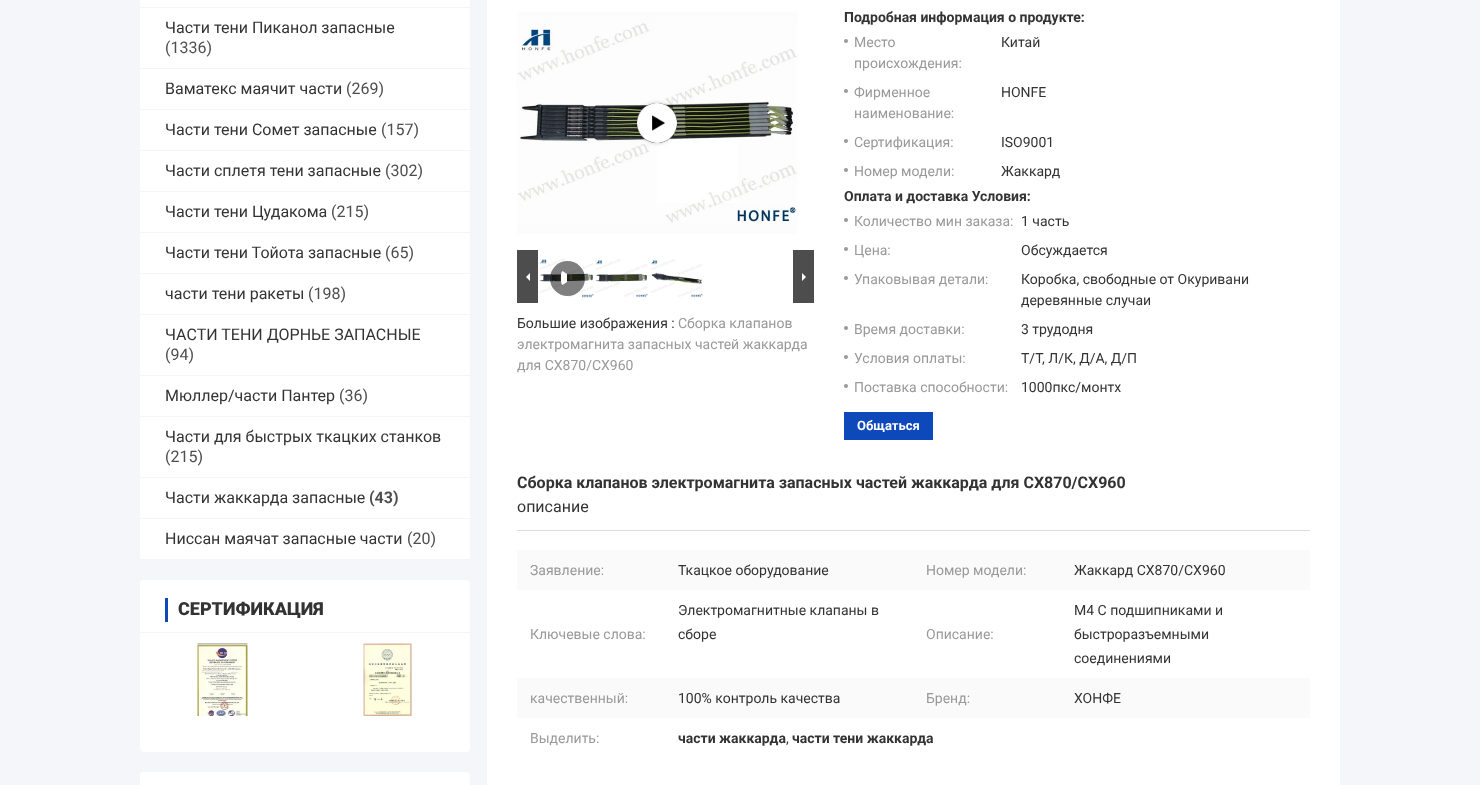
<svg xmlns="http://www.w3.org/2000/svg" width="1480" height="785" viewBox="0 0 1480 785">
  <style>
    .t1 { font: 16px Roboto; fill: #333; }
    .t2 { font: 16px Roboto; fill: #4e4e4e; }
    .t3 { font: bold 16px Roboto; fill: #4e4e4e; }
    .t4 { font: 900 18px Roboto; fill: #333; }
    .t5 { font: 14px Roboto; fill: #333; }
    .t6 { font: 14px Roboto; fill: #999; }
    .t7 { font: bold 14px Roboto; fill: #333; }
    .t8 { font: bold 13px Roboto; fill: #fff; }
    .t9 { font: bold 16px Roboto; fill: #333; }
  </style>
  <rect width="100%" height="100%" fill="#f4f6f9"/>
  <rect x="140" y="-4" width="330" height="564" rx="4" fill="#fff"/>
  <rect x="140" y="7" width="330" height="1" fill="#f5f5f5"/>
  <rect x="140" y="68" width="330" height="1" fill="#f5f5f5"/>
  <text x="165" y="33" class="t1">Части тени Пиканол запасные</text>
  <text x="165" y="53" class="t2">(1336)</text>
  <rect x="140" y="109" width="330" height="1" fill="#f5f5f5"/>
  <text x="165" y="94" class="t1">Ваматекс маячит части</text>
  <text x="346" y="94" class="t2">(269)</text>
  <rect x="140" y="150" width="330" height="1" fill="#f5f5f5"/>
  <text x="165" y="135" class="t1">Части тени Сомет запасные</text>
  <text x="381" y="135" class="t2">(157)</text>
  <rect x="140" y="191" width="330" height="1" fill="#f5f5f5"/>
  <text x="165" y="176" class="t1">Части сплетя тени запасные</text>
  <text x="385" y="176" class="t2">(302)</text>
  <rect x="140" y="232" width="330" height="1" fill="#f5f5f5"/>
  <text x="165" y="217" class="t1">Части тени Цудакома</text>
  <text x="331" y="217" class="t2">(215)</text>
  <rect x="140" y="273" width="330" height="1" fill="#f5f5f5"/>
  <text x="165" y="258" class="t1">Части тени Тойота запасные</text>
  <text x="385" y="258" class="t2">(65)</text>
  <rect x="140" y="314" width="330" height="1" fill="#f5f5f5"/>
  <text x="165" y="299" class="t1">части тени ракеты</text>
  <text x="308" y="299" class="t2">(198)</text>
  <rect x="140" y="375" width="330" height="1" fill="#f5f5f5"/>
  <text x="165" y="340" class="t1">ЧАСТИ ТЕНИ ДОРНЬЕ ЗАПАСНЫЕ</text>
  <text x="165" y="360" class="t2">(94)</text>
  <rect x="140" y="416" width="330" height="1" fill="#f5f5f5"/>
  <text x="165" y="401" class="t1">Мюллер/части Пантер</text>
  <text x="339" y="401" class="t2">(36)</text>
  <rect x="140" y="477" width="330" height="1" fill="#f5f5f5"/>
  <text x="165" y="442" class="t1">Части для быстрых ткацких станков</text>
  <text x="165" y="462" class="t2">(215)</text>
  <rect x="140" y="518" width="330" height="1" fill="#f5f5f5"/>
  <text x="165" y="503" class="t1">Части жаккарда запасные</text>
  <text x="369" y="503" class="t3">(43)</text>
  <rect x="140" y="559" width="330" height="1" fill="#f5f5f5"/>
  <text x="165" y="544" class="t1">Ниссан маячат запасные части</text>
  <text x="407" y="544" class="t2">(20)</text>
  <rect x="140" y="580" width="330" height="172" rx="4" fill="#fff"/>
  <rect x="140" y="632" width="330" height="1" fill="#f5f5f5"/>
  <rect x="165" y="598" width="3" height="24" fill="#0e49bb"/>
  <text x="178" y="615" class="t4">СЕРТИФИКАЦИЯ</text>
  <image x="197" y="643" width="51" height="73" href="images/1.png"/>
  <image x="363" y="643" width="49" height="73" href="images/2.png"/>
  <rect x="140" y="772" width="330" height="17" rx="4" fill="#fff"/>
  <rect x="487" y="0" width="853" height="785" fill="#fff"/>
  <rect x="517" y="12" width="280" height="222" fill="#fcfcfc"/>
  <image x="517" y="23" width="280" height="200" href="images/3.png"/>
  <image x="657" y="137" width="80" height="66" href="images/5.png"/>
  <rect x="637" y="103" width="40" height="40" rx="20" fill="#00000033" filter="blur(2px)"/>
  <circle cx="657" cy="123" r="20" fill="#000"/>
  <image x="637" y="103" width="40" height="40" href="images/4.png"/>
  <rect x="517" y="250" width="21" height="53" fill="#4d4d4d"/>
  <path d="M530 273V281L526 277Z" fill="#fff"/>
  <image x="539" y="258" width="55" height="40" href="images/6.png"/>
  <circle cx="567.5" cy="278.5" r="17.5" fill="#00000080"/>
  <path d="M561 275C561 273.5 561.5 272 562.5 271L567 274V282L562.5 285C560.5 283.5 561 277.5 561 275Z" fill="#fff"/>
  <image x="595" y="259" width="53" height="39" href="images/7.png"/>
  <image x="650" y="259" width="53" height="39" href="images/8.png"/>
  <rect x="793" y="250" width="21" height="53" fill="#4d4d4d"/>
  <path d="M802 281V273L806 277Z" fill="#fff"/>
  <text x="517" y="328" class="t5">Большие изображения :</text>
  <text x="678" y="328" class="t6">Сборка клапанов</text>
  <text x="517" y="349" class="t6">электромагнита запасных частей жаккарда</text>
  <text x="517" y="370" class="t6">для CX870/CX960</text>
  <text x="844" y="22" class="t7">Подробная информация о продукте:</text>
  <circle cx="846" cy="41" r="2" fill="#999"/>
  <text x="854" y="47" class="t6">Место</text>
  <text x="854" y="68" class="t6">происхождения:</text>
  <text x="1001" y="47" class="t5">Китай</text>
  <circle cx="846" cy="91" r="2" fill="#999"/>
  <text x="854" y="97" class="t6">Фирменное</text>
  <text x="854" y="118" class="t6">наименование:</text>
  <text x="1001" y="97" class="t5">HONFE</text>
  <circle cx="846" cy="141" r="2" fill="#999"/>
  <text x="854" y="147" class="t6">Сертификация:</text>
  <text x="1001" y="147" class="t5">ISO9001</text>
  <circle cx="846" cy="170" r="2" fill="#999"/>
  <text x="854" y="176" class="t6">Номер модели:</text>
  <text x="1001" y="176" class="t5">Жаккард</text>
  <text x="844" y="201" class="t7">Оплата и доставка Условия:</text>
  <circle cx="846" cy="220" r="2" fill="#999"/>
  <text x="854" y="226" class="t6">Количество мин заказа:</text>
  <text x="1021" y="226" class="t5">1 часть</text>
  <circle cx="846" cy="249" r="2" fill="#999"/>
  <text x="854" y="255" class="t6">Цена:</text>
  <text x="1021" y="255" class="t5">Обсуждается</text>
  <circle cx="846" cy="278" r="2" fill="#999"/>
  <text x="854" y="284" class="t6">Упаковывая детали:</text>
  <text x="1021" y="284" class="t5">Коробка, свободные от Окуривани</text>
  <text x="1021" y="305" class="t5">деревянные случаи</text>
  <circle cx="846" cy="328" r="2" fill="#999"/>
  <text x="854" y="334" class="t6">Время доставки:</text>
  <text x="1021" y="334" class="t5">3 трудодня</text>
  <circle cx="846" cy="357" r="2" fill="#999"/>
  <text x="854" y="363" class="t6">Условия оплаты:</text>
  <text x="1021" y="363" class="t5">Т/Т, Л/К, Д/А, Д/П</text>
  <circle cx="846" cy="386" r="2" fill="#999"/>
  <text x="854" y="392" class="t6">Поставка способности:</text>
  <text x="1021" y="392" class="t5">1000пкс/монтх</text>
  <rect x="844" y="412" width="89" height="28" fill="#0e49bb"/>
  <text x="857" y="430" class="t8">Общаться</text>
  <rect x="517" y="530" width="793" height="1" fill="#ddd"/>
  <text x="517" y="488" class="t9">Сборка клапанов электромагнита запасных частей жаккарда для CX870/CX960</text>
  <text x="517" y="512" class="t1">описание</text>
  <rect x="517" y="550" width="793" height="40" fill="#fafafa"/>
  <text x="530" y="575" class="t6">Заявление:</text>
  <text x="678" y="575" class="t5">Ткацкое оборудование</text>
  <text x="926" y="575" class="t6">Номер модели:</text>
  <text x="1074" y="575" class="t5">Жаккард CX870/CX960</text>
  <text x="530" y="639" class="t6">Ключевые слова:</text>
  <text x="678" y="615" class="t5">Электромагнитные клапаны в</text>
  <text x="678" y="639" class="t5">сборе</text>
  <text x="926" y="639" class="t6">Описание:</text>
  <text x="1074" y="615" class="t5">M4 С подшипниками и</text>
  <text x="1074" y="639" class="t5">быстроразъемными</text>
  <text x="1074" y="663" class="t5">соединениями</text>
  <rect x="517" y="678" width="793" height="40" fill="#fafafa"/>
  <text x="530" y="703" class="t6">качественный:</text>
  <text x="678" y="703" class="t5">100% контроль качества</text>
  <text x="926" y="703" class="t6">Бренд:</text>
  <text x="1074" y="703" class="t5">ХОНФЕ</text>
  <text x="530" y="743" class="t6">Выделить:</text>
  <text x="678" y="743" class="t7">части жаккарда</text>
  <text x="786" y="743" class="t5">,</text>
  <text x="792" y="743" class="t7">части тени жаккарда</text>
</svg>
